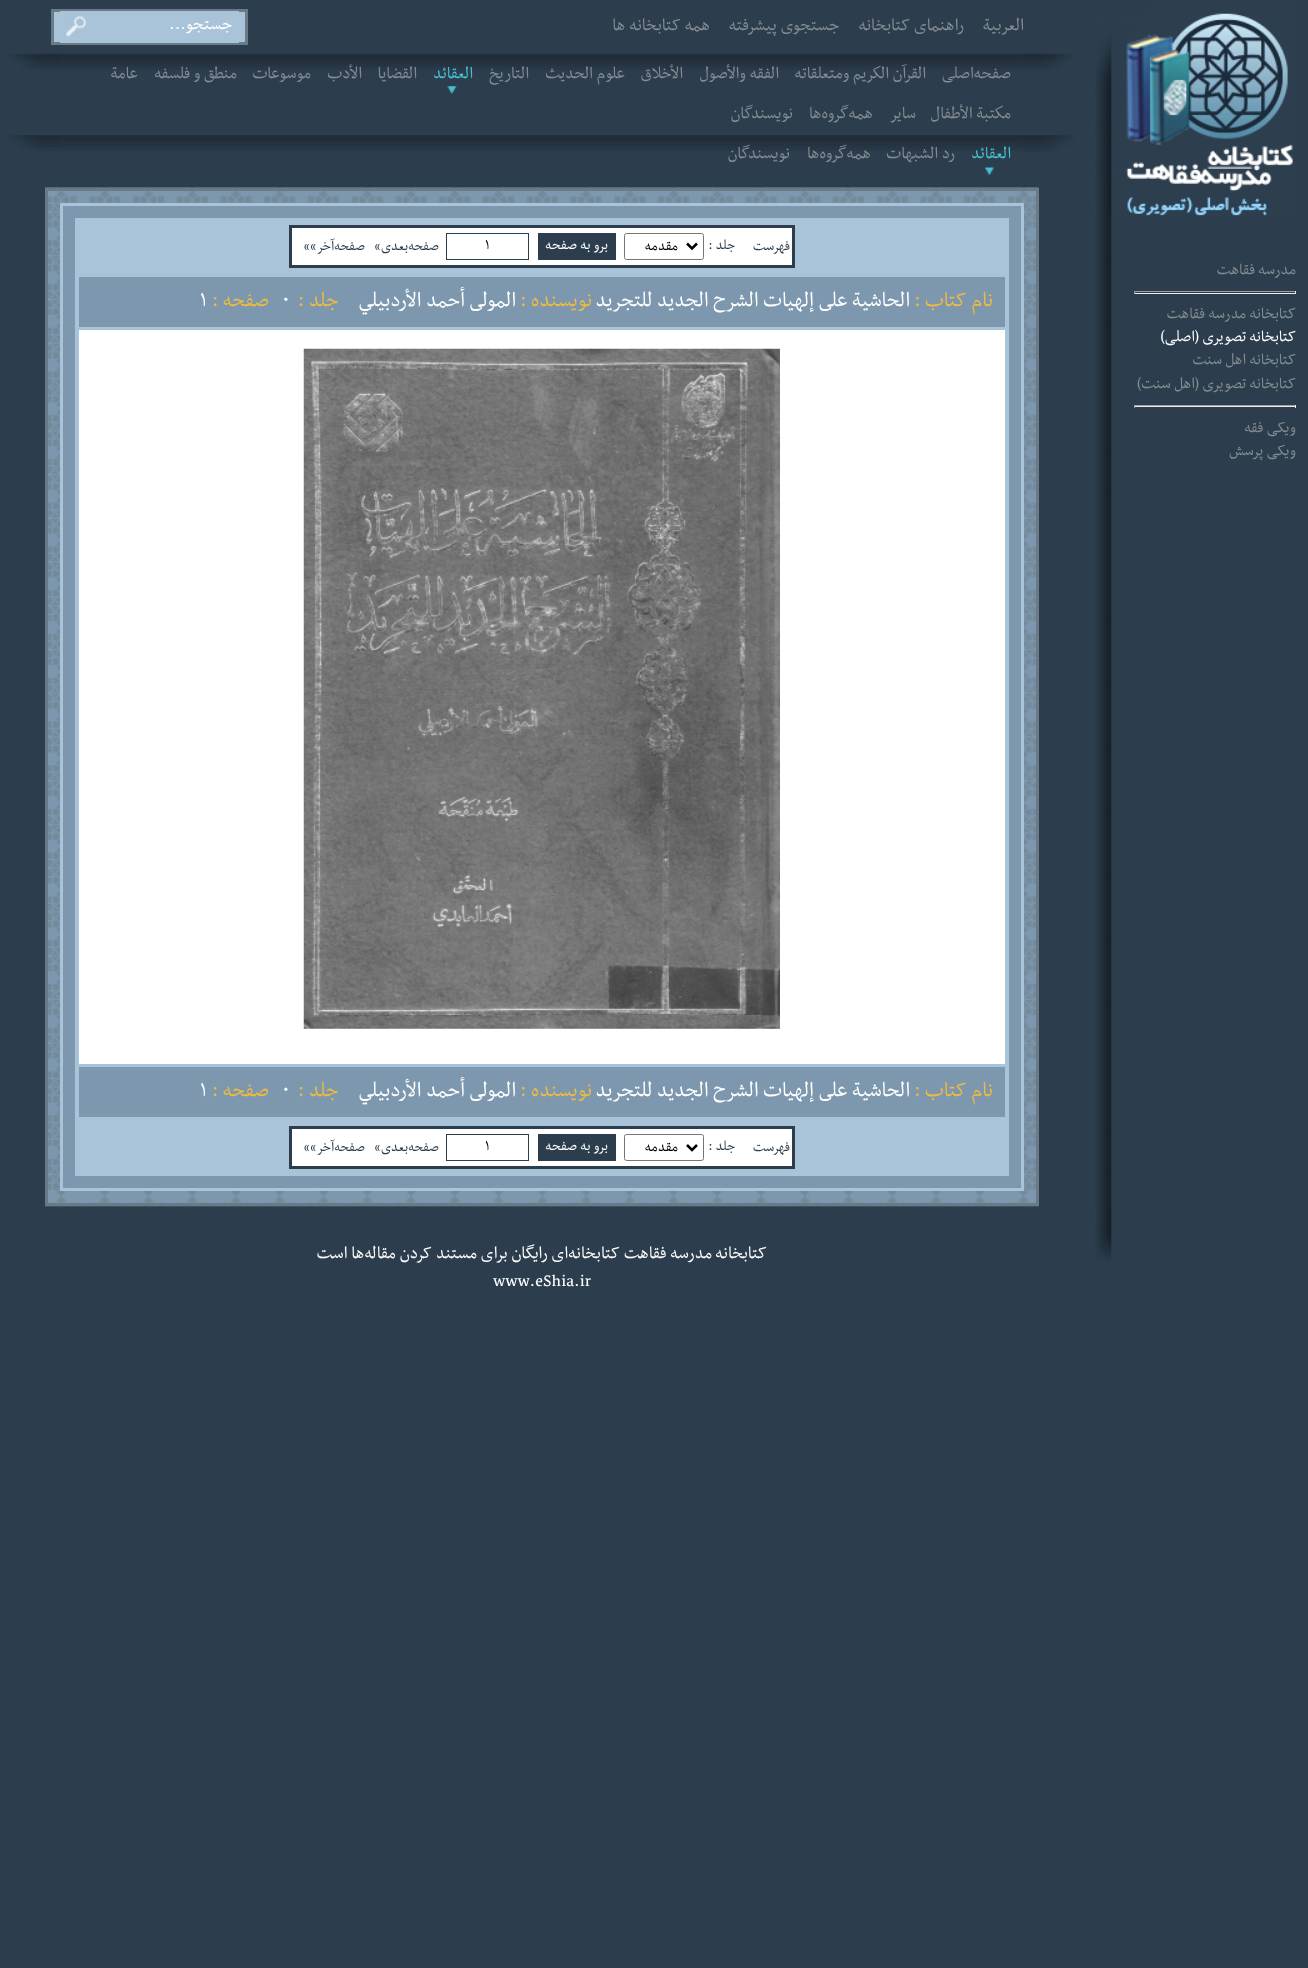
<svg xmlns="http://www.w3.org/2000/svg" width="1308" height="1968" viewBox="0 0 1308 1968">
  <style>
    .t1 { font: 18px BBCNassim; direction: rtl; fill: #858c91; }
    .t2 { font: 18px BBCNassim; direction: rtl; fill: #fff; }
    .t3 { font: 20px BBCNassim; direction: rtl; fill: #858c91; }
    .t4 { font: 20px BBCNassim; direction: rtl; fill: #fff; }
    .t5 { font: 19.25px BBCNassim; direction: rtl; fill: #858c91; }
    .t6 { font: 19.25px BBCNassim; direction: rtl; fill: #45c3d1; }
    .t7 { font: 16px BBCNassim; direction: rtl; fill: #2c3e4e; }
    .t8 { font: 16.5px BBCNassim; direction: rtl; fill: #000; }
    .t9 { font: 16.5px BBCNassim; direction: rtl; fill: #fff; }
    .t10 { font: 16.5px BBCNassim; fill: #000; }
    .t11 { font: 24px BBCNassim; direction: rtl; fill: #eebb41; }
    .t12 { font: 24px BBCNassim; direction: rtl; fill: #fff; }
    .t13 { font: 24px BBCNassim; fill: #fff; }
    .t14 { font: 20px BBCNassim; fill: #fff; }
  </style>
  <rect width="100%" height="100%" fill="#2c3e4e"/>
  <image x="1095" y="216" width="17" height="990" href="images/1.png"/>
  <image x="1095" y="0" width="200" height="216" href="images/2.png"/>
  <text x="1296" y="274" class="t1">مدرسه فقاهت</text>
  <rect x="1134" y="291" width="162" height="1" fill="#9f9f9f"/>
  <rect x="1295" y="291" width="1" height="3" fill="#eee"/>
  <rect x="1134" y="293" width="162" height="1" fill="#eee"/>
  <rect x="1134" y="291" width="1" height="3" fill="#9f9f9f"/>
  <text x="1296" y="318" class="t1">کتابخانه مدرسه فقاهت</text>
  <text x="1296" y="341" class="t2">کتابخانه تصویری (اصلی)</text>
  <text x="1296" y="364" class="t1">کتابخانه اهل سنت</text>
  <text x="1296" y="388" class="t1">کتابخانه تصویری (اهل سنت)</text>
  <rect x="1134" y="405" width="162" height="1" fill="#9f9f9f"/>
  <rect x="1295" y="405" width="1" height="3" fill="#eee"/>
  <rect x="1134" y="406" width="162" height="1" fill="#eee"/>
  <rect x="1134" y="405" width="1" height="3" fill="#9f9f9f"/>
  <text x="1296" y="432" class="t1">ویکی فقه</text>
  <text x="1296" y="455" class="t1">ویکی پرسش</text>
  <text x="1024" y="30" class="t3">العربیة</text>
  <text x="964" y="30" class="t3">راهنمای کتابخانه</text>
  <text x="839" y="30" class="t3">جستجوی پیشرفته</text>
  <text x="710" y="30" class="t3">همه کتابخانه ها</text>
  <rect x="52.5" y="10.5" width="194" height="33" fill="#a9c3d9" stroke="#697a89" stroke-width="3"/>
  <rect x="60" y="11" width="179" height="32" fill="#a9c3d9"/>
  <text x="232" y="29" class="t4">جستجو...</text>
  <image x="66" y="16" width="21" height="21" href="images/3.png"/>
  <image x="1021" y="53" width="53" height="17" href="images/4.png"/>
  <image x="62" y="53" width="959" height="17" href="images/5.png"/>
  <text x="1011" y="78" class="t5">صفحه‌اصلی</text>
  <text x="926" y="78" class="t5">القرآن الكريم ومتعلقاته</text>
  <text x="779" y="78" class="t5">الفقه والأصول</text>
  <text x="683" y="78" class="t5">الأخلاق</text>
  <text x="625" y="78" class="t5">علوم الحديث</text>
  <text x="529" y="78" class="t5">التاريخ</text>
  <text x="473" y="78" class="t6">العقائد</text>
  <text x="417" y="78" class="t5">القضايا</text>
  <text x="362" y="78" class="t5">الأدب</text>
  <text x="311" y="78" class="t5">موسوعات</text>
  <text x="237" y="78" class="t5">منطق و فلسفه</text>
  <text x="138" y="78" class="t5">عامة</text>
  <image x="447" y="86" width="10" height="8" href="images/6.png"/>
  <text x="1011" y="118" class="t5">مكتبة الأطفال</text>
  <text x="916" y="118" class="t5">سایر</text>
  <text x="873" y="118" class="t5">همه‌گروه‌ها</text>
  <text x="793" y="118" class="t5">نویسندگان</text>
  <image x="9" y="53" width="54" height="17" href="images/7.png"/>
  <image x="1021" y="135" width="53" height="17" href="images/8.png"/>
  <image x="62" y="135" width="959" height="16" href="images/9.png"/>
  <text x="1011" y="158" class="t6">العقائد</text>
  <text x="955" y="158" class="t5">رد الشبهات</text>
  <text x="871" y="158" class="t5">همه‌گروه‌ها</text>
  <text x="790" y="158" class="t5">نویسندگان</text>
  <image x="985" y="167" width="9" height="8" href="images/10.png"/>
  <image x="9" y="135" width="54" height="16" href="images/11.png"/>
  <image x="45" y="187" width="994" height="1020" href="images/12.png"/>
  <rect x="46.5" y="189.5" width="991" height="1015" fill="none" stroke="#697a89" stroke-width="3"/>
  <rect x="61.5" y="204.5" width="961" height="985" fill="#7d98ae" stroke="#a9c3d9" stroke-width="3"/>
  <rect x="75" y="218" width="934" height="958" fill="#a9c3d9"/>
  <rect x="290.5" y="226.5" width="503" height="40" fill="#fff" stroke="#2c3e4e" stroke-width="3"/>
  <text x="790" y="250" class="t7">فهرست</text>
  <text x="735" y="249" class="t7">جلد :</text>
  <rect x="624.5" y="233.5" width="79" height="26" rx="2" fill="none" stroke="#767676"/>
  <path d="M687 243.5L692 248.5L697 243.5" fill="none" stroke="#000" stroke-width="2.5"/>
  <text x="678" y="250" class="t8">مقدمه</text>
  <rect x="538" y="233" width="78" height="27" fill="#2c3e4e"/>
  <text x="608" y="249" class="t9">برو به صفحه</text>
  <rect x="446.5" y="233.5" width="82" height="26" fill="none" stroke="#2c3e4e"/>
  <text x="485" y="249" class="t10">1</text>
  <text x="439" y="250" class="t7">صفحه‌بعدی»</text>
  <text x="365" y="250" class="t7">صفحه‌آخر»»</text>
  <rect x="79" y="277" width="926" height="50" fill="#7d98ae"/>
  <text x="993" y="306" class="t11">نام کتاب :</text>
  <text x="910" y="306" class="t12">الحاشية على إلهيات الشرح الجديد للتجريد</text>
  <text x="592" y="306" class="t11">نویسنده :</text>
  <text x="516" y="306" class="t12">المولى أحمد الأردبيلي</text>
  <text x="338" y="306" class="t11">جلد :</text>
  <text x="282" y="306" class="t13">0</text>
  <text x="269" y="306" class="t11">صفحه :</text>
  <text x="200" y="306" class="t13">1</text>
  <rect x="79" y="330" width="926" height="734" fill="#fff"/>
  <image x="303" y="348" width="477" height="681" href="images/13.png"/>
  <rect x="79" y="1067" width="926" height="50" fill="#7d98ae"/>
  <text x="993" y="1096" class="t11">نام کتاب :</text>
  <text x="910" y="1096" class="t12">الحاشية على إلهيات الشرح الجديد للتجريد</text>
  <text x="592" y="1096" class="t11">نویسنده :</text>
  <text x="516" y="1096" class="t12">المولى أحمد الأردبيلي</text>
  <text x="338" y="1096" class="t11">جلد :</text>
  <text x="282" y="1096" class="t13">0</text>
  <text x="269" y="1096" class="t11">صفحه :</text>
  <text x="200" y="1096" class="t13">1</text>
  <rect x="290.5" y="1127.5" width="503" height="40" fill="#fff" stroke="#2c3e4e" stroke-width="3"/>
  <text x="790" y="1151" class="t7">فهرست</text>
  <text x="735" y="1150" class="t7">جلد :</text>
  <rect x="624.5" y="1134.5" width="79" height="26" rx="2" fill="none" stroke="#767676"/>
  <path d="M687 1145L692 1150L697 1145" fill="none" stroke="#000" stroke-width="2.5"/>
  <text x="678" y="1151" class="t8">مقدمه</text>
  <rect x="538" y="1134" width="78" height="27" fill="#2c3e4e"/>
  <text x="608" y="1150" class="t9">برو به صفحه</text>
  <rect x="446.5" y="1134.5" width="82" height="26" fill="none" stroke="#2c3e4e"/>
  <text x="485" y="1150" class="t10">1</text>
  <text x="439" y="1151" class="t7">صفحه‌بعدی»</text>
  <text x="365" y="1151" class="t7">صفحه‌آخر»»</text>
  <image x="1095" y="1206" width="17" height="55" href="images/14.png"/>
  <text x="767" y="1258" class="t4">کتابخانه</text>
  <text x="712" y="1258" class="t4">مدرسه فقاهت</text>
  <text x="620" y="1258" class="t4">کتابخانه‌ای رایگان برای مستند کردن مقاله‌ها است</text>
  <text x="493" y="1286" class="t14">www.eShia.ir</text>
</svg>
